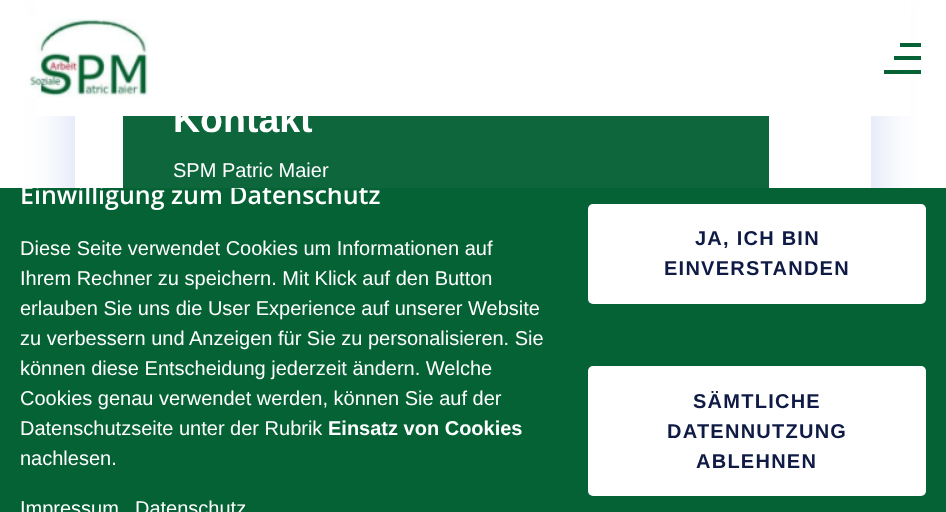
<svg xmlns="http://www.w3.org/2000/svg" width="946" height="512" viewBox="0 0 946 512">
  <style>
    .t1 { font: bold 37.5px Liberation Sans; fill: #fff; }
    .t2 { font: 20px Liberation Sans; fill: #fff; }
    .t3 { font: 600 25px Open Sans; fill: #fff; }
    .t4 { font: bold 20px Liberation Sans; fill: #fff; }
    .t5 { font: bold 20px Liberation Sans; letter-spacing: 1.25px; fill: #0f1a45; }
  </style>
  <defs>
    <clipPath id="clip1"><path d="M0 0H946V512H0ZM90-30H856C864.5-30 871-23.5 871-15V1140C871 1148.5 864.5 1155 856 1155H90C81.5 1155 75 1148.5 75 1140V-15C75-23.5 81.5-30 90-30Z" clip-rule="evenodd"/></clipPath>
    <clipPath id="clip2"><rect x="20" y="188" width="528" height="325"/></clipPath>
  </defs>
  <rect width="100%" height="100%" fill="#fff"/>
  <g clip-path="url(#clip1)">
    <rect x="75" y="-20" width="796" height="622" rx="15" fill="#cfd7f3" filter="blur(25px)"/>
  </g>
  <rect x="35" y="0" width="876" height="116" fill="#fff"/>
  <image x="25" y="18" width="124" height="80" href="images/1.png"/>
  <rect x="894" y="56" width="27" height="4" fill="#056235"/>
  <rect x="900" y="43" width="21" height="4" fill="#056235"/>
  <rect x="884" y="70" width="37" height="4" fill="#056235"/>
  <rect x="123" y="116" width="646" height="72" fill="#0e673c"/>
  <text x="173" y="132" class="t1">Kontakt</text>
  <text x="173" y="177" class="t2">SPM Patric Maier</text>
  <rect x="0" y="188" width="946" height="324" fill="#056235"/>
  <g clip-path="url(#clip2)">
    <text x="20" y="204" class="t3">Einwilligung zum Datenschutz</text>
  </g>
  <text x="20" y="255" class="t2">Diese Seite verwendet Cookies um Informationen auf</text>
  <text x="20" y="285" class="t2">Ihrem Rechner zu speichern. Mit Klick auf den Button</text>
  <text x="20" y="315" class="t2">erlauben Sie uns die User Experience auf unserer Website</text>
  <text x="20" y="345" class="t2">zu verbessern und Anzeigen für Sie zu personalisieren. Sie</text>
  <text x="20" y="375" class="t2">können diese Entscheidung jederzeit ändern. Welche</text>
  <text x="20" y="405" class="t2">Cookies genau verwendet werden, können Sie auf der</text>
  <text x="20" y="435" class="t2">Datenschutzseite unter der Rubrik</text>
  <text x="328" y="435" class="t4">Einsatz von Cookies</text>
  <text x="20" y="465" class="t2">nachlesen.</text>
  <text x="20" y="515" class="t2">Impressum</text>
  <text x="135" y="515" class="t2">Datenschutz</text>
  <rect x="588" y="204" width="338" height="100" rx="5" fill="#fff"/>
  <text x="695" y="245" class="t5">JA, ICH BIN</text>
  <text x="664" y="275" class="t5">EINVERSTANDEN</text>
  <rect x="588" y="366" width="338" height="130" rx="5" fill="#fff"/>
  <text x="693" y="408" class="t5">SÄMTLICHE</text>
  <text x="667" y="438" class="t5">DATENNUTZUNG</text>
  <text x="696" y="468" class="t5">ABLEHNEN</text>
</svg>
